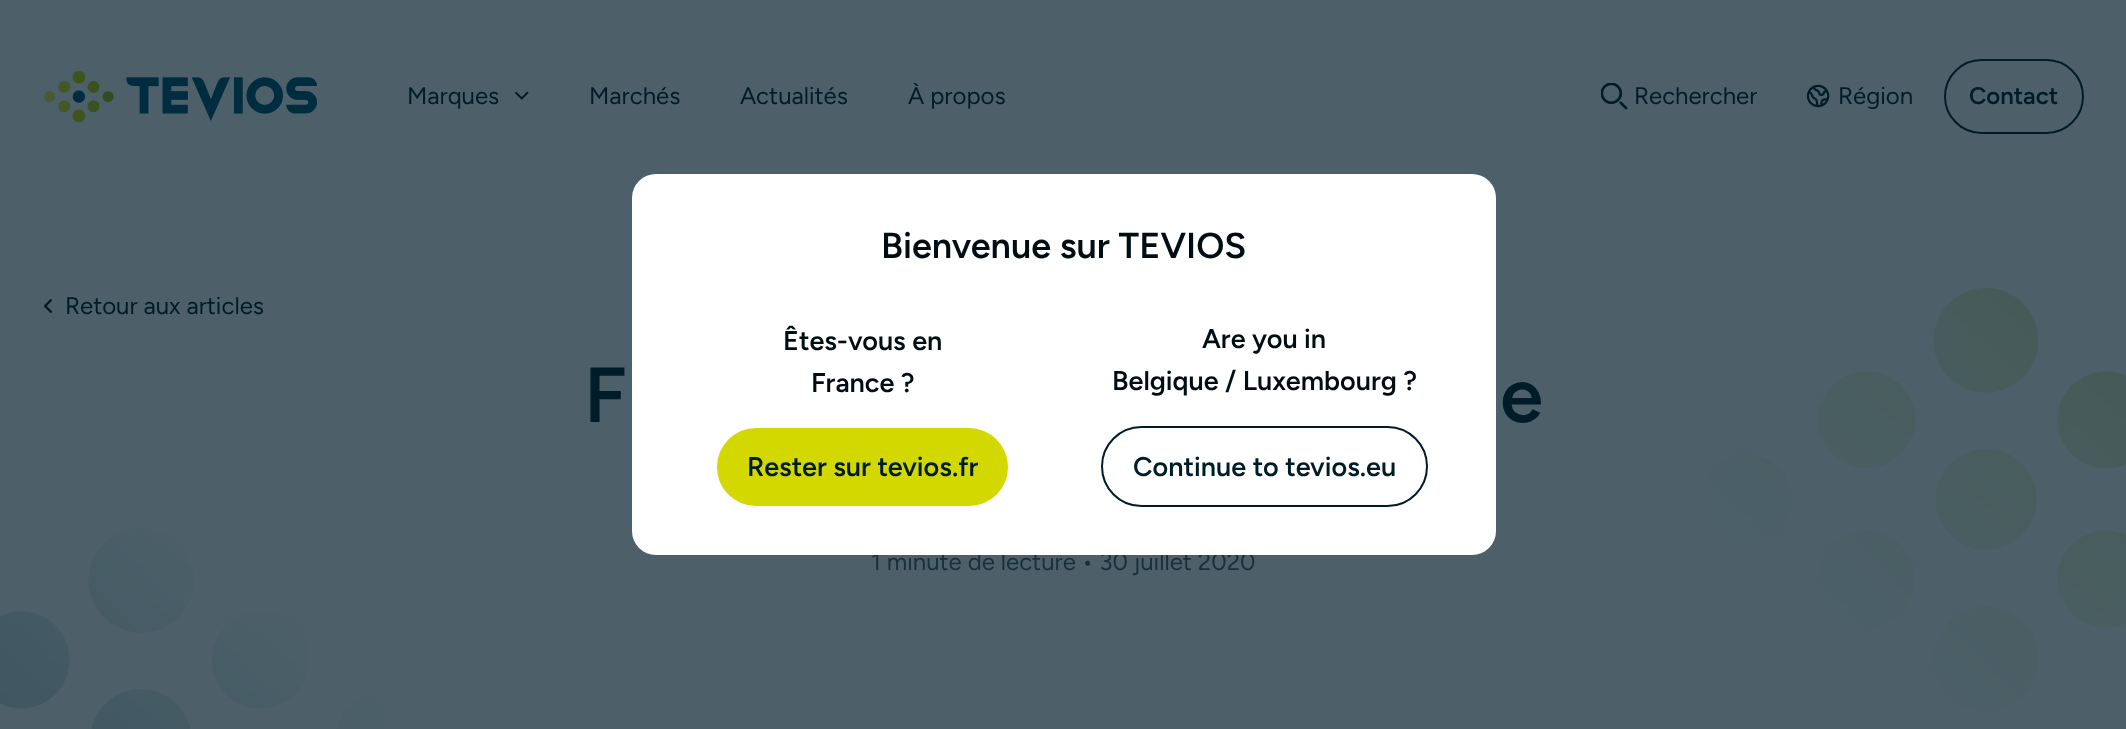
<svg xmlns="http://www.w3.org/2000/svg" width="2126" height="729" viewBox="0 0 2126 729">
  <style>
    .t1 { font: 24px Figtree; fill: #001c29; }
    .t2 { font: 600 24px Figtree; fill: #001c29; }
    .t3 { font: 24px Figtree; fill: #17303c; }
    .t4 { font: 600 36px Figtree; fill: #000e14; }
    .t5 { font: 600 27px Figtree; fill: #000e14; }
    .t6 { font: 600 27px Figtree; fill: #001c29; }
    .t7 { font: 600 78px Figtree; fill: #001c29; }
  </style>
  <rect width="100%" height="100%" fill="#4d6069"/>
  <image x="44" y="71" width="273" height="51" href="images/1.png"/>
  <text x="407" y="104" class="t1">Marques</text>
  <image x="515" y="91" width="14" height="9" href="images/2.png"/>
  <text x="589" y="104" class="t1">Marchés</text>
  <text x="740" y="104" class="t1">Actualités</text>
  <text x="908" y="104" class="t1">À propos</text>
  <image x="1601" y="83" width="27" height="27" href="images/3.png"/>
  <text x="1634" y="104" class="t1">Rechercher</text>
  <image x="1806" y="84" width="24" height="24" href="images/4.png"/>
  <text x="1838" y="104" class="t1">Région</text>
  <rect x="1945" y="60" width="138" height="73" rx="36.5" fill="none" stroke="#001c29" stroke-width="2"/>
  <text x="1969" y="104" class="t2">Contact</text>
  <text x="871" y="570" class="t3">1 minute de lecture • 30 juillet 2020</text>
  <rect x="632" y="174" width="864" height="381" rx="24" fill="#fff"/>
  <text x="881" y="258" class="t4">Bienvenue sur TEVIOS</text>
  <text x="783" y="350" class="t5">Êtes-vous en</text>
  <text x="811" y="392" class="t5">France ?</text>
  <rect x="717" y="429" width="291" height="78" rx="39" fill="#0000000d" filter="blur(1.5px)"/>
  <rect x="717" y="428" width="291" height="78" rx="39" fill="#d3d800"/>
  <text x="747" y="476" class="t6">Rester sur tevios.fr</text>
  <text x="1202" y="348" class="t5">Are you in</text>
  <text x="1112" y="390" class="t5">Belgique / Luxembourg ?</text>
  <rect x="1102" y="427" width="325" height="79" rx="39.5" fill="none" stroke="#001c29" stroke-width="2"/>
  <text x="1133" y="476" class="t6">Continue to tevios.eu</text>
  <image x="0" y="528" width="384" height="201" href="images/5.png"/>
  <image x="1708" y="288" width="418" height="423" href="images/6.png"/>
  <image x="44" y="299" width="8" height="14" href="images/7.png"/>
  <text x="65" y="314" class="t1">Retour aux articles</text>
  <text x="584" y="422" class="t7">F</text>
  <text x="1500" y="422" class="t7">e</text>
</svg>
